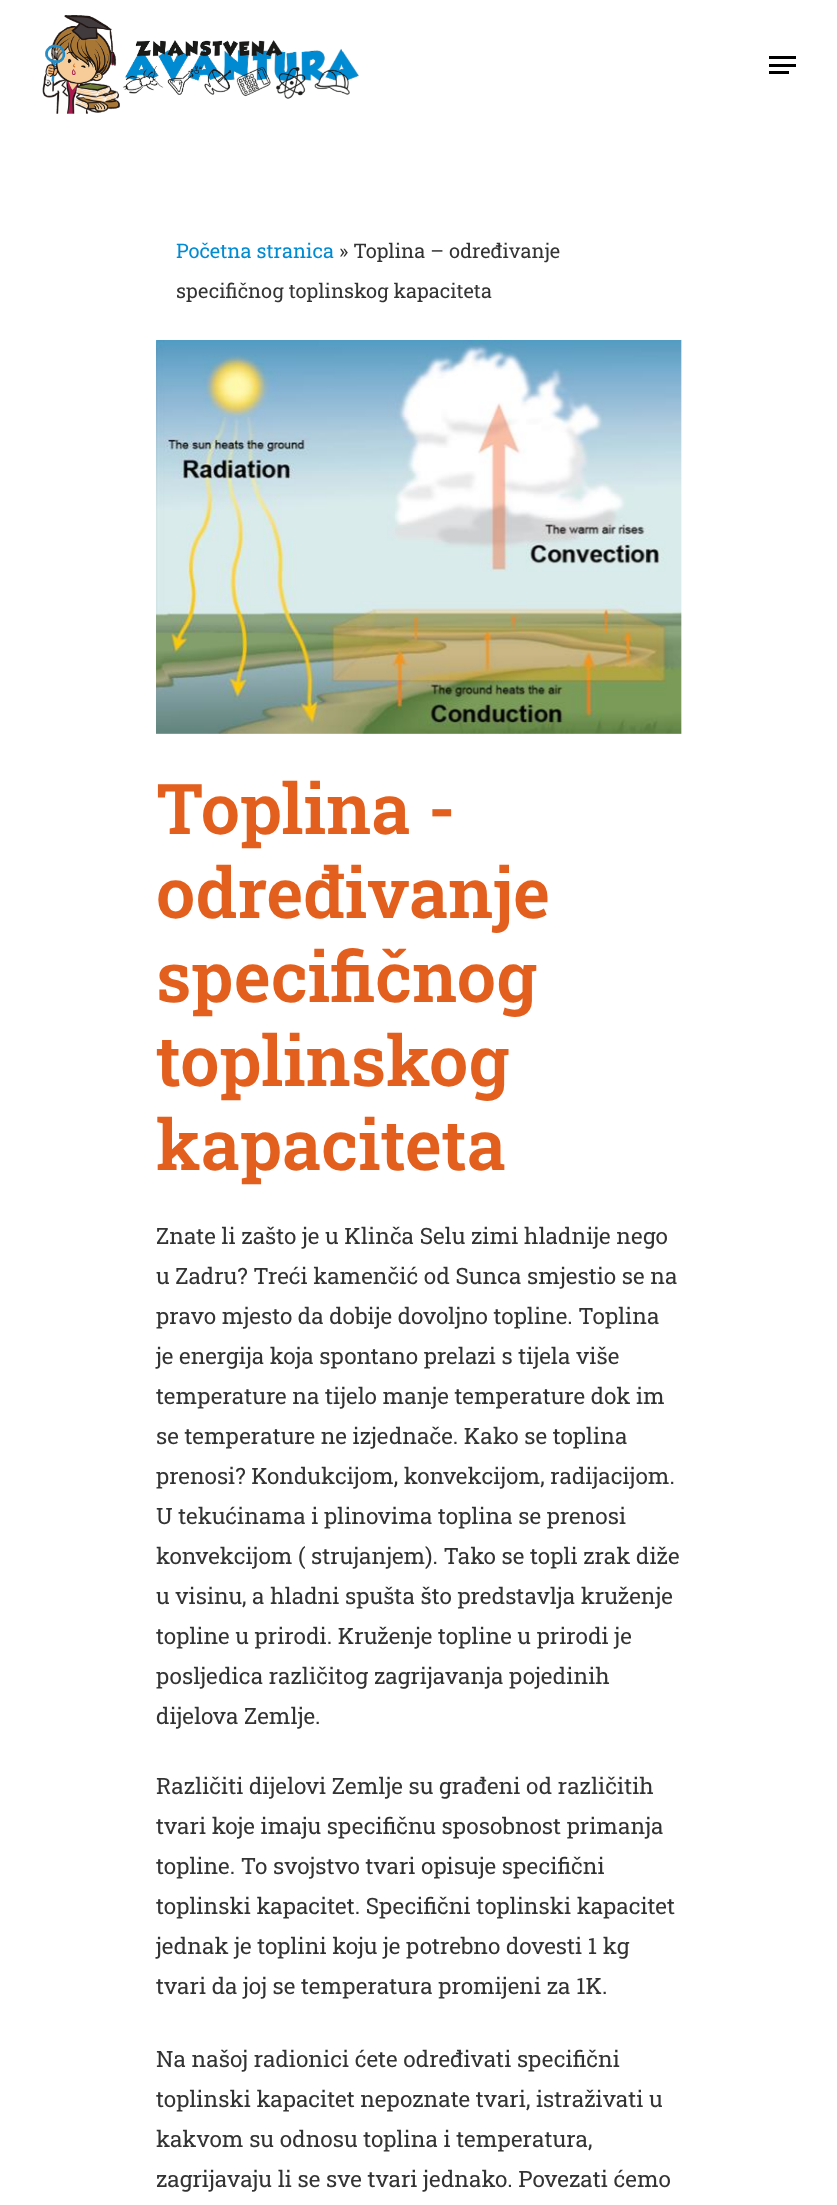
<svg xmlns="http://www.w3.org/2000/svg" width="837" height="2205" viewBox="0 0 837 2205">
  <style>
    .t1 { font: 20px Roboto Slab; fill: #008bd2; }
    .t2 { font: 20px Roboto Slab; fill: #333; }
    .t3 { font: 600 70px Roboto Slab; fill: #e25f1d; }
    .t4 { font: 22.5px Roboto Slab; fill: #333; }
  </style>
  <rect width="100%" height="100%" fill="#fff"/>
  <image x="42" y="15" width="317" height="99" href="images/1.png"/>
  <rect x="769" y="56" width="27" height="3" fill="#000"/>
  <rect x="769" y="71" width="20" height="3" fill="#000"/>
  <rect x="769" y="64" width="27" height="3" fill="#000"/>
  <text x="176" y="258" class="t1">Početna stranica</text>
  <text x="339" y="258" class="t2">» Toplina – određivanje</text>
  <text x="176" y="298" class="t2">specifičnog toplinskog kapaciteta</text>
  <image x="156" y="340" width="526" height="394" href="images/2.png"/>
  <text x="156" y="834" class="t3">Toplina -</text>
  <text x="156" y="918" class="t3">određivanje</text>
  <text x="156" y="1002" class="t3">specifičnog</text>
  <text x="156" y="1086" class="t3">toplinskog</text>
  <text x="156" y="1170" class="t3">kapaciteta</text>
  <text x="156" y="1244" class="t4">Znate li zašto je u Klinča Selu zimi hladnije nego</text>
  <text x="156" y="1284" class="t4">u Zadru? Treći kamenčić od Sunca smjestio se na</text>
  <text x="156" y="1324" class="t4">pravo mjesto da dobije dovoljno topline. Toplina</text>
  <text x="156" y="1364" class="t4">je energija koja spontano prelazi s tijela više</text>
  <text x="156" y="1404" class="t4">temperature na tijelo manje temperature dok im</text>
  <text x="156" y="1444" class="t4">se temperature ne izjednače. Kako se toplina</text>
  <text x="156" y="1484" class="t4">prenosi? Kondukcijom, konvekcijom, radijacijom.</text>
  <text x="156" y="1524" class="t4">U tekućinama i plinovima toplina se prenosi</text>
  <text x="156" y="1564" class="t4">konvekcijom ( strujanjem). Tako se topli zrak diže</text>
  <text x="156" y="1604" class="t4">u visinu, a hladni spušta što predstavlja kruženje</text>
  <text x="156" y="1644" class="t4">topline u prirodi. Kruženje topline u prirodi je</text>
  <text x="156" y="1684" class="t4">posljedica različitog zagrijavanja pojedinih</text>
  <text x="156" y="1724" class="t4">dijelova Zemlje.</text>
  <text x="156" y="1794" class="t4">Različiti dijelovi Zemlje su građeni od različitih</text>
  <text x="156" y="1834" class="t4">tvari koje imaju specifičnu sposobnost primanja</text>
  <text x="156" y="1874" class="t4">topline. To svojstvo tvari opisuje specifični</text>
  <text x="156" y="1914" class="t4">toplinski kapacitet. Specifični toplinski kapacitet</text>
  <text x="156" y="1954" class="t4">jednak je toplini koju je potrebno dovesti 1 kg</text>
  <text x="156" y="1994" class="t4">tvari da joj se temperatura promijeni za 1K.</text>
  <text x="156" y="2067" class="t4">Na našoj radionici ćete određivati specifični</text>
  <text x="156" y="2107" class="t4">toplinski kapacitet nepoznate tvari, istraživati u</text>
  <text x="156" y="2147" class="t4">kakvom su odnosu toplina i temperatura,</text>
  <text x="156" y="2187" class="t4">zagrijavaju li se sve tvari jednako. Povezati ćemo</text>
</svg>
